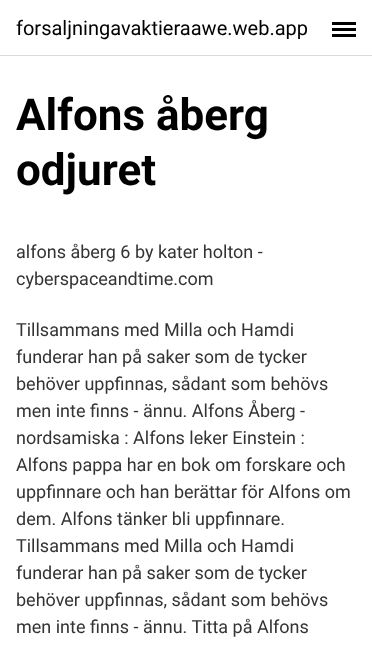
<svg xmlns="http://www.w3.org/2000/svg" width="372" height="653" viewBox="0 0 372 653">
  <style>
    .t1 { font: 20px Roboto; fill: #000; }
    .t2 { font: bold 44px Roboto; fill: #000; }
    .t3 { font: 18px Roboto; fill: #333; }
  </style>
  <rect width="100%" height="100%" fill="#fff"/>
  <rect x="0" y="55" width="372" height="1" fill="#dbdbdb"/>
  <text x="16" y="35" class="t1">forsaljningavaktieraawe.web.app</text>
  <rect x="332" y="28" width="24" height="3" fill="#000"/>
  <rect x="332" y="22" width="24" height="3" fill="#000"/>
  <rect x="332" y="34" width="24" height="3" fill="#000"/>
  <text x="16" y="130" class="t2">Alfons åberg</text>
  <text x="16" y="185" class="t2">odjuret</text>
  <text x="16" y="258" class="t3">alfons åberg 6 by kater holton -</text>
  <text x="16" y="285" class="t3">cyberspaceandtime.com</text>
  <text x="16" y="336" class="t3">Tillsammans med Milla och Hamdi</text>
  <text x="16" y="363" class="t3">funderar han på saker som de tycker</text>
  <text x="16" y="390" class="t3">behöver uppfinnas, sådant som behövs</text>
  <text x="16" y="417" class="t3">men inte finns - ännu. Alfons Åberg -</text>
  <text x="16" y="444" class="t3">nordsamiska : Alfons leker Einstein :</text>
  <text x="16" y="471" class="t3">Alfons pappa har en bok om forskare och</text>
  <text x="16" y="498" class="t3">uppfinnare och han berättar för Alfons om</text>
  <text x="16" y="525" class="t3">dem. Alfons tänker bli uppfinnare.</text>
  <text x="16" y="552" class="t3">Tillsammans med Milla och Hamdi</text>
  <text x="16" y="579" class="t3">funderar han på saker som de tycker</text>
  <text x="16" y="606" class="t3">behöver uppfinnas, sådant som behövs</text>
  <text x="16" y="633" class="t3">men inte finns - ännu. Titta på Alfons</text>
</svg>
